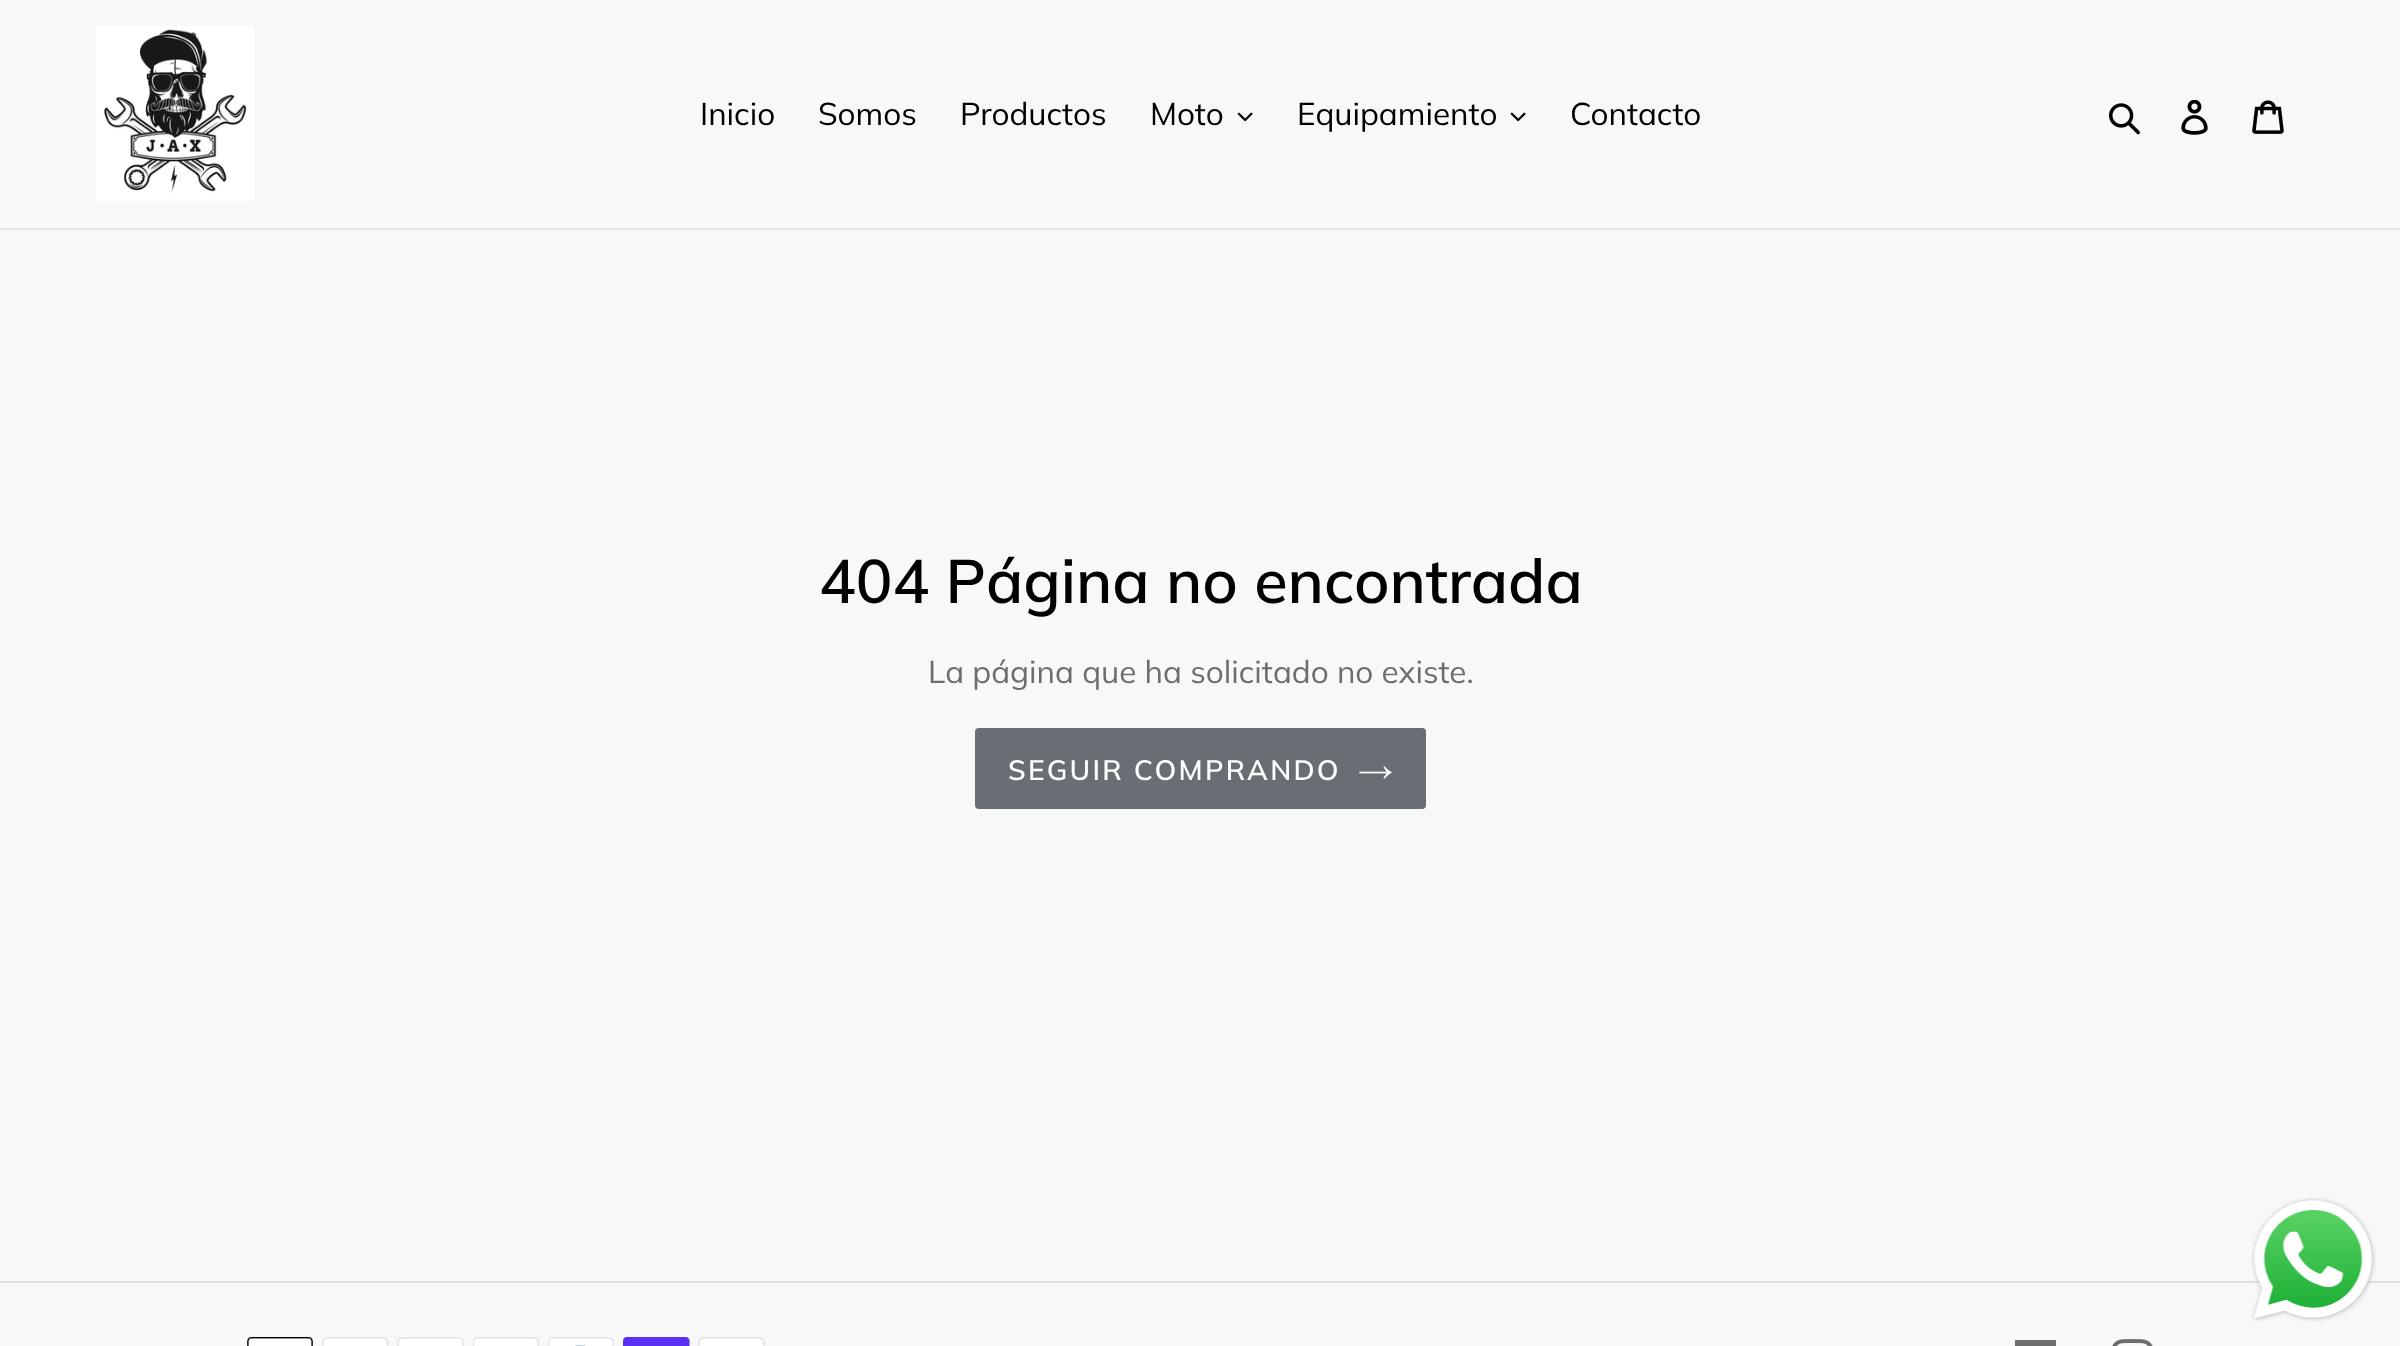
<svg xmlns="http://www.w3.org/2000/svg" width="2400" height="1346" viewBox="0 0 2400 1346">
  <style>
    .t1 { font: 31.5px Muli; fill: #000; }
    .t2 { font: 600 61.25px Muli; fill: #000; }
    .t3 { font: 31.5px Muli; fill: #6d6d6d; }
    .t4 { font: 600 28px Muli; letter-spacing: 2.25px; fill: #fff; }
  </style>
  <rect width="100%" height="100%" fill="#f8f8f8"/>
  <rect x="0" y="228" width="2400" height="2" fill="#e4e4e4"/>
  <image x="96" y="26" width="158" height="175" href="images/1.png"/>
  <text x="700" y="125" class="t1">Inicio</text>
  <text x="818" y="125" class="t1">Somos</text>
  <text x="960" y="125" class="t1">Productos</text>
  <text x="1150" y="125" class="t1">Moto</text>
  <image x="1237" y="112" width="16" height="10" href="images/2.png"/>
  <text x="1297" y="125" class="t1">Equipamiento</text>
  <image x="1510" y="112" width="16" height="10" href="images/2.png"/>
  <text x="1570" y="125" class="t1">Contacto</text>
  <image x="2109" y="103" width="31" height="32" href="images/3.png"/>
  <image x="2181" y="100" width="27" height="35" href="images/4.png"/>
  <image x="2252" y="100" width="32" height="34" href="images/5.png"/>
  <text x="819" y="603" class="t2">404 Página no encontrada</text>
  <text x="928" y="683" class="t3">La página que ha solicitado no existe.</text>
  <rect x="975" y="728" width="451" height="81" rx="4" fill="#696d74"/>
  <text x="1008" y="780" class="t4">SEGUIR COMPRANDO</text>
  <image x="1359" y="766" width="33" height="13" href="images/6.png"/>
  <rect x="0" y="1281" width="2400" height="2" fill="#dfdfdf"/>
  <image x="247" y="1337" width="66" height="9" href="images/7.png"/>
  <image x="322" y="1337" width="67" height="9" href="images/8.png"/>
  <image x="397" y="1337" width="67" height="9" href="images/9.png"/>
  <image x="473" y="1337" width="66" height="9" href="images/10.png"/>
  <image x="548" y="1337" width="66" height="9" href="images/11.png"/>
  <image x="623" y="1337" width="67" height="9" href="images/12.png"/>
  <image x="698" y="1337" width="67" height="9" href="images/9.png"/>
  <rect x="2015" y="1340" width="41" height="6" fill="#6d6d6d"/>
  <image x="2112" y="1339" width="41" height="7" href="images/13.png"/>
  <image x="2251" y="1197" width="125" height="125" href="images/14.png"/>
</svg>
